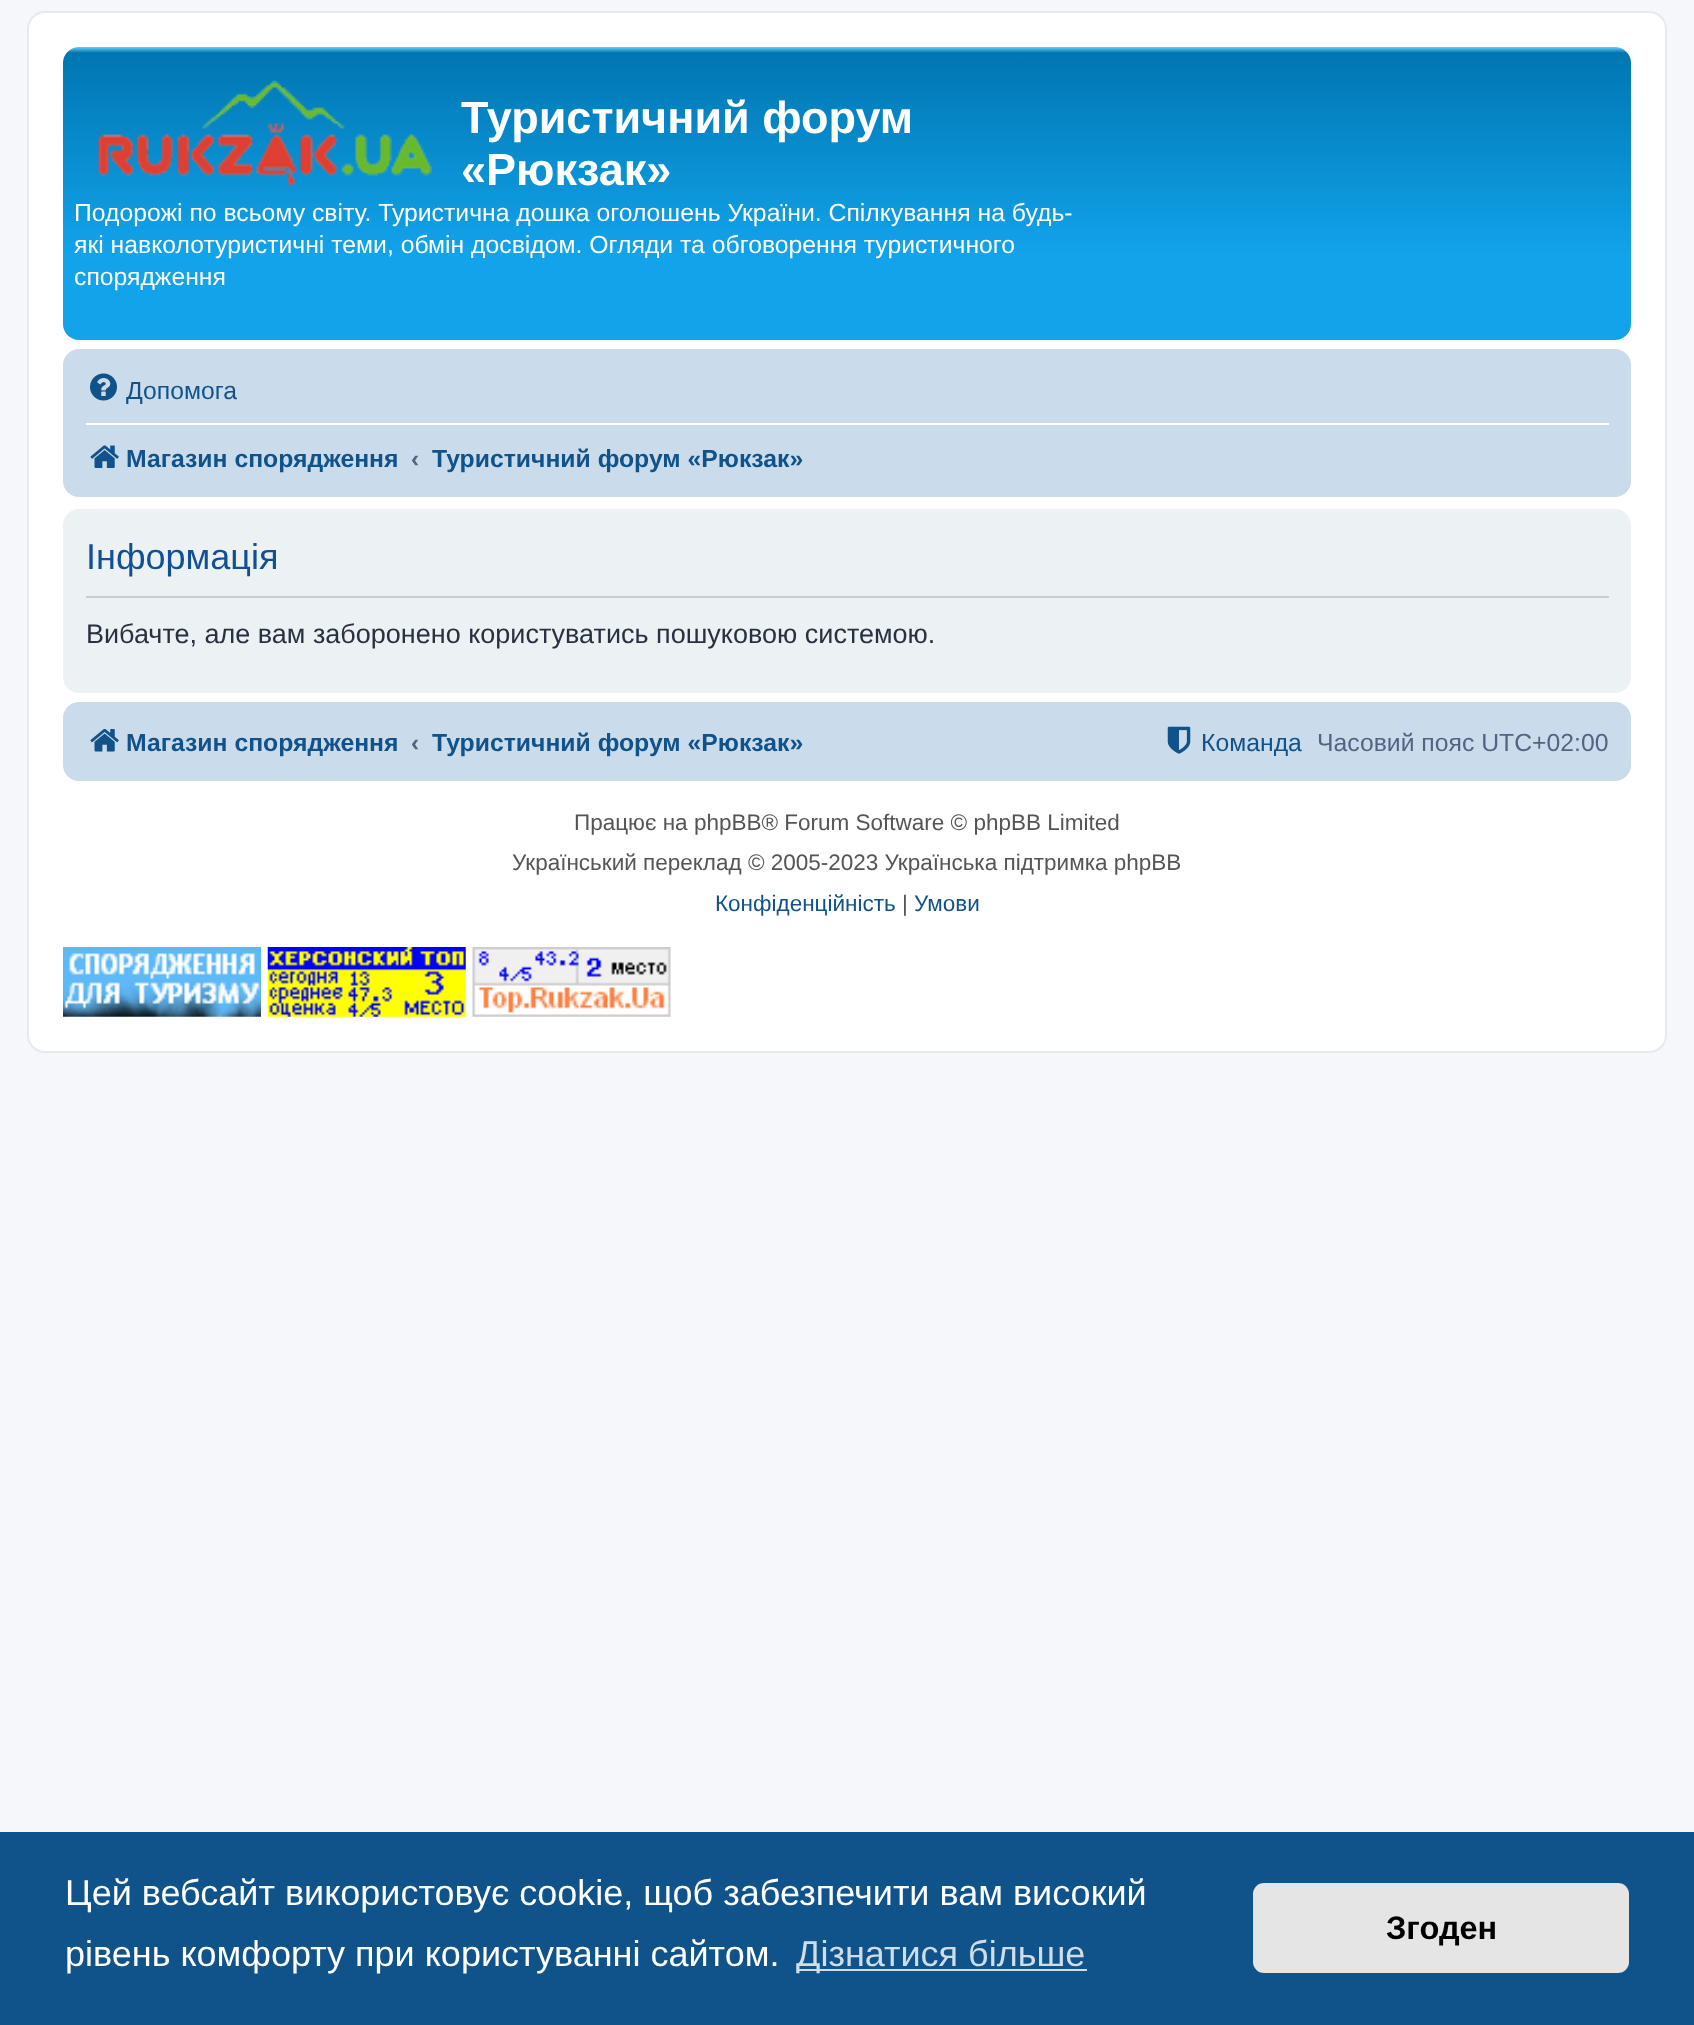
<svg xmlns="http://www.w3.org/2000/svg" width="1694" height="2025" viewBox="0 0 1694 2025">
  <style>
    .t1 { font: bold 45px Liberation Sans; fill: #fff; }
    .t2 { font: 24.75px Liberation Sans; fill: #fff; }
    .t3 { font: 24.75px Liberation Sans; fill: #105289; }
    .t4 { font: bold 24.75px Liberation Sans; fill: #105289; }
    .t5 { font: bold 24.75px Liberation Sans; fill: #536482; }
    .t6 { font: 36px Liberation Sans; fill: #115098; }
    .t7 { font: 27px Liberation Sans; fill: #28313f; }
    .t8 { font: 24.75px Liberation Sans; fill: #536482; }
    .t9 { font: 22.5px Liberation Sans; fill: #555; }
    .t10 { font: 22.5px Liberation Sans; fill: #105289; }
    .t11 { font: 36px Liberation Sans; fill: #fff; }
    .t12 { font: 36px Liberation Sans; fill: #cfdde8; }
    .t13 { font: bold 32.5px Liberation Sans; fill: #000; }
  </style>
  <defs>
    <linearGradient id="g1" gradientUnits="userSpaceOnUse" x1="847" y1="47" x2="847" y2="340"><stop offset="0" stop-color="#6aceff"/><stop offset="0.02" stop-color="#0076b1"/><stop offset="0.71" stop-color="#12a3eb"/><stop offset="1" stop-color="#12a3eb"/></linearGradient>
    <clipPath id="clip1"><rect x="432" y="432" width="371" height="54"/></clipPath>
    <clipPath id="clip2"><rect x="432" y="716" width="371" height="54"/></clipPath>
  </defs>
  <rect width="100%" height="100%" fill="#f5f7fa"/>
  <rect x="28" y="12" width="1638" height="1040" rx="17" fill="#fff" stroke="#e6e9ed" stroke-width="2"/>
  <rect x="63" y="47" width="1568" height="293" rx="16" fill="url(#g1)"/>
  <image x="98" y="80" width="334" height="107" href="images/1.png"/>
  <text x="461" y="133" class="t1">Туристичний форум</text>
  <text x="461" y="185" class="t1">«Рюкзак»</text>
  <text x="74" y="221" class="t2">Подорожі по всьому світу. Туристична дошка оголошень України. Спілкування на будь-</text>
  <text x="74" y="253" class="t2">які навколотуристичні теми, обмін досвідом. Огляди та обговорення туристичного</text>
  <text x="74" y="285" class="t2">спорядження</text>
  <rect x="63" y="349" width="1568" height="148" rx="16" fill="#cadceb"/>
  <image x="90" y="373" width="27" height="28" href="images/2.png"/>
  <text x="126" y="399" class="t3">Допомога</text>
  <rect x="86" y="423" width="1523" height="2" fill="#fff"/>
  <image x="90" y="445" width="29" height="23" href="images/3.png"/>
  <text x="126" y="467" class="t4">Магазин спорядження</text>
  <text x="411" y="467" class="t5">‹</text>
  <g clip-path="url(#clip1)">
    <text x="432" y="467" class="t4">Туристичний форум «Рюкзак»</text>
  </g>
  <rect x="63" y="509" width="1568" height="184" rx="16" fill="#ecf1f3"/>
  <rect x="86" y="596" width="1523" height="2" fill="#ccc"/>
  <text x="86" y="569" class="t6">Інформація</text>
  <text x="86" y="643" class="t7">Вибачте, але вам заборонено користуватись пошуковою системою.</text>
  <rect x="63" y="702" width="1568" height="79" rx="16" fill="#cadceb"/>
  <image x="90" y="729" width="29" height="23" href="images/4.png"/>
  <text x="126" y="751" class="t4">Магазин спорядження</text>
  <text x="411" y="751" class="t5">‹</text>
  <g clip-path="url(#clip2)">
    <text x="432" y="751" class="t4">Туристичний форум «Рюкзак»</text>
  </g>
  <image x="1167" y="726" width="24" height="28" href="images/5.png"/>
  <text x="1201" y="751" class="t3">Команда</text>
  <text x="1317" y="751" class="t8">Часовий пояс UTC+02:00</text>
  <text x="574" y="830" class="t9">Працює на phpBB® Forum Software © phpBB Limited</text>
  <text x="512" y="870" class="t9">Український переклад © 2005-2023 Українська підтримка phpBB</text>
  <text x="715" y="911" class="t10">Конфіденційність</text>
  <text x="902" y="911" class="t9">|</text>
  <text x="914" y="911" class="t10">Умови</text>
  <image x="63" y="947" width="198" height="70" href="images/6.png"/>
  <image x="267" y="947" width="199" height="70" href="images/7.png"/>
  <image x="472" y="947" width="199" height="70" href="images/8.png"/>
  <rect x="0" y="1832" width="1694" height="193" fill="#0f538a"/>
  <text x="65" y="1905" class="t11">Цей вебсайт використовує cookie, щоб забезпечити вам високий</text>
  <text x="65" y="1966" class="t11">рівень комфорту при користуванні сайтом.</text>
  <rect x="797" y="1969" width="290" height="2" fill="#cfdde8"/>
  <text x="796" y="1966" class="t12">Дізнатися більше</text>
  <rect x="1253" y="1883" width="376" height="90" rx="11" fill="#e5e5e5"/>
  <text x="1386" y="1939" class="t13">Згоден</text>
</svg>
